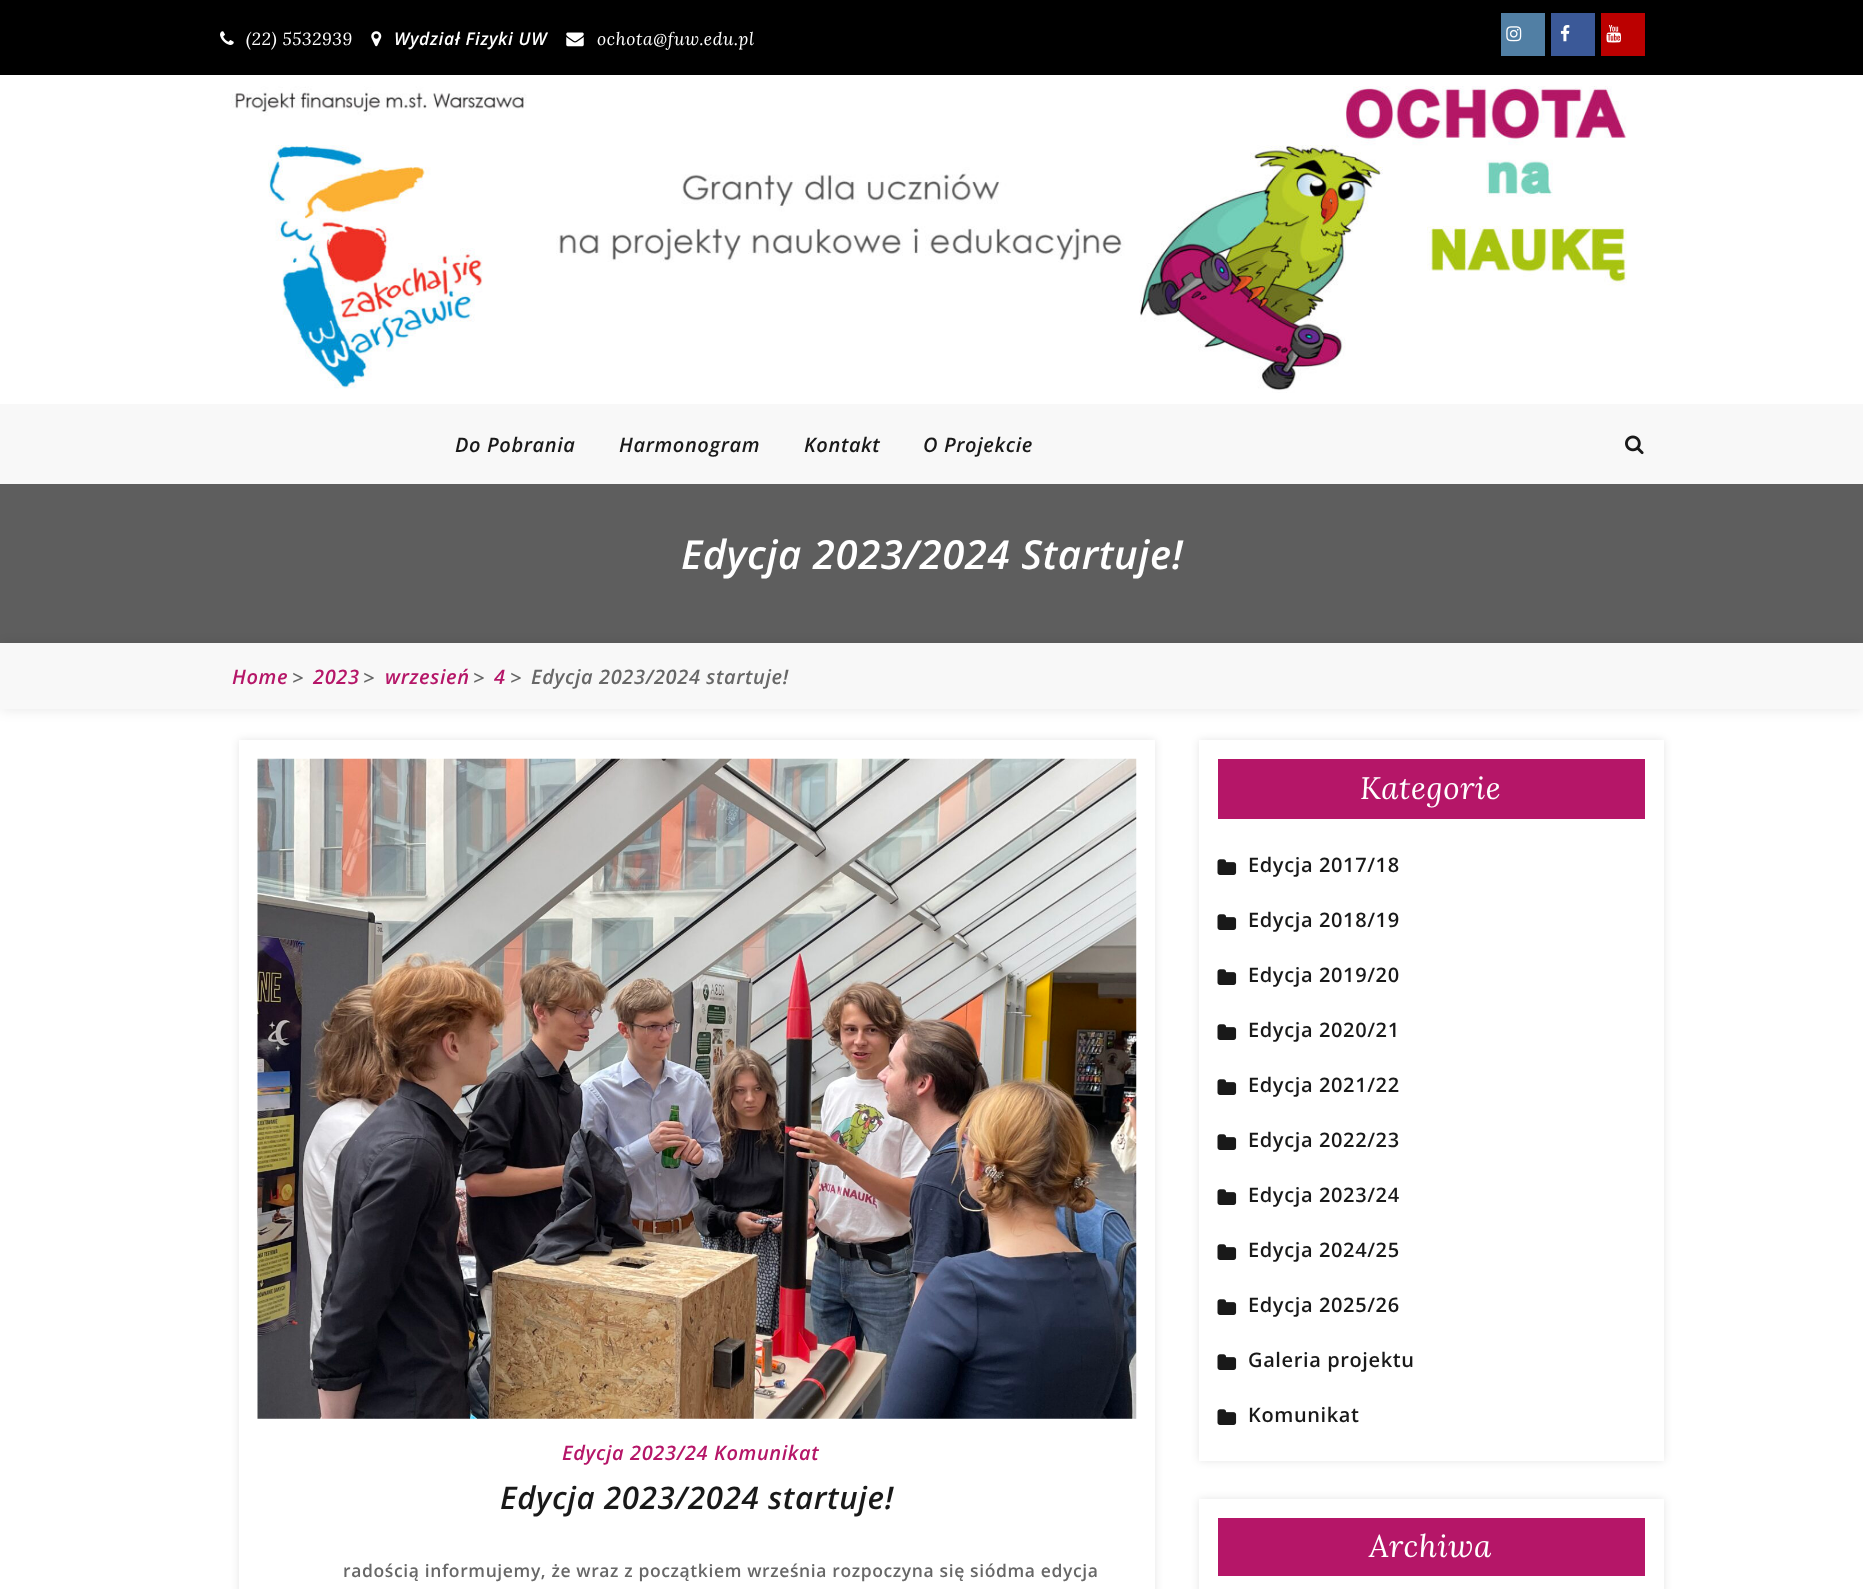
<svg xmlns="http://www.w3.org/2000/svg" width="1863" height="1589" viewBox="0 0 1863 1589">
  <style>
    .t1 { font: italic 17.5px Lora; letter-spacing: 0.62px; fill: #fff; }
    .t2 { font: italic 600 17.5px Open Sans; letter-spacing: 0.62px; fill: #fff; }
    .t3 { font: italic 600 20px Open Sans; letter-spacing: 0.62px; fill: #191919; }
    .t4 { font: italic 600 40px Open Sans; letter-spacing: 0.62px; fill: #fff; }
    .t5 { font: italic 600 20px Open Sans; letter-spacing: 0.62px; fill: #b51668; }
    .t6 { font: italic 600 20px Open Sans; letter-spacing: 0.62px; fill: #676767; }
    .t7 { font: italic 600 31.25px Open Sans; letter-spacing: 0.62px; fill: #191919; }
    .t8 { font: 600 17.5px Open Sans; letter-spacing: 0.62px; fill: #676767; }
    .t9 { font: italic 31.25px Lora; letter-spacing: 0.62px; fill: #fff; }
    .t10 { font: 600 20px Open Sans; letter-spacing: 0.62px; fill: #191919; }
  </style>
  <defs>
    <clipPath id="clip1"><path d="M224 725H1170V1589H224ZM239 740H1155V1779H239Z" clip-rule="evenodd"/></clipPath>
  </defs>
  <rect width="100%" height="100%" fill="#fff"/>
  <rect x="0" y="0" width="1863" height="75" fill="#000"/>
  <image x="220" y="31" width="14" height="14" href="images/1.png"/>
  <text x="246" y="45" class="t1">(22) 5532939</text>
  <image x="371" y="31" width="11" height="16" href="images/2.png"/>
  <text x="394" y="45" class="t2">Wydział Fizyki UW</text>
  <image x="566" y="32" width="18" height="15" href="images/3.png"/>
  <text x="597" y="45" class="t1">ochota@fuw.edu.pl</text>
  <rect x="1501" y="13" width="44" height="43" fill="#517fa4"/>
  <image x="1506" y="26" width="16" height="16" href="images/4.png"/>
  <rect x="1551" y="13" width="44" height="43" fill="#3b5998"/>
  <image x="1560" y="25" width="10" height="17" href="images/5.png"/>
  <rect x="1601" y="13" width="44" height="43" fill="#b00"/>
  <image x="1606" y="25" width="15" height="18" href="images/6.png"/>
  <image x="231" y="86" width="1396" height="307" href="images/7.png"/>
  <rect x="0" y="404" width="1863" height="80" fill="#f8f8f8"/>
  <text x="455" y="452" class="t3">Do Pobrania</text>
  <text x="619" y="452" class="t3">Harmonogram</text>
  <text x="804" y="452" class="t3">Kontakt</text>
  <text x="923" y="452" class="t3">O Projekcie</text>
  <image x="1625" y="435" width="19" height="20" href="images/8.png"/>
  <rect x="0" y="643" width="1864" height="66" fill="#0000001a" filter="blur(7px)"/>
  <rect x="0" y="484" width="1863" height="159" fill="#000000a1"/>
  <text x="681" y="569" class="t4">Edycja 2023/2024 Startuje!</text>
  <rect x="0" y="643" width="1863" height="66" fill="#f8f8f8"/>
  <text x="232" y="684" class="t5">Home</text>
  <text x="292" y="685" class="t6">&gt;</text>
  <text x="313" y="684" class="t5">2023</text>
  <text x="363" y="685" class="t6">&gt;</text>
  <text x="385" y="684" class="t5">wrzesień</text>
  <text x="473" y="685" class="t6">&gt;</text>
  <text x="494" y="684" class="t5">4</text>
  <text x="510" y="685" class="t6">&gt;</text>
  <text x="531" y="684" class="t6">Edycja 2023/2024 startuje!</text>
  <g clip-path="url(#clip1)">
    <rect x="239" y="740" width="916" height="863" fill="#0000001a" filter="blur(4.5px)"/>
  </g>
  <image x="257" y="758" width="880" height="661" href="images/9.png"/>
  <text x="562" y="1460" class="t5">Edycja 2023/24 Komunikat</text>
  <text x="500" y="1509" class="t7">Edycja 2023/2024 startuje!</text>
  <text x="343" y="1577" class="t8">radością informujemy, że wraz z początkiem września rozpoczyna się siódma edycja</text>
  <rect x="1199" y="740" width="465" height="721" fill="#0000001a" filter="blur(4.5px)"/>
  <rect x="1199" y="740" width="465" height="721" fill="#fff"/>
  <rect x="1218" y="759" width="427" height="60" fill="#b51668"/>
  <text x="1360" y="799" class="t9">Kategorie</text>
  <image x="1217" y="859" width="20" height="16" href="images/10.png"/>
  <text x="1248" y="872" class="t10">Edycja 2017/18</text>
  <image x="1217" y="914" width="20" height="16" href="images/10.png"/>
  <text x="1248" y="927" class="t10">Edycja 2018/19</text>
  <image x="1217" y="969" width="20" height="16" href="images/10.png"/>
  <text x="1248" y="982" class="t10">Edycja 2019/20</text>
  <image x="1217" y="1024" width="20" height="16" href="images/10.png"/>
  <text x="1248" y="1037" class="t10">Edycja 2020/21</text>
  <image x="1217" y="1079" width="20" height="16" href="images/10.png"/>
  <text x="1248" y="1092" class="t10">Edycja 2021/22</text>
  <image x="1217" y="1134" width="20" height="16" href="images/10.png"/>
  <text x="1248" y="1147" class="t10">Edycja 2022/23</text>
  <image x="1217" y="1189" width="20" height="16" href="images/10.png"/>
  <text x="1248" y="1202" class="t10">Edycja 2023/24</text>
  <image x="1217" y="1244" width="20" height="16" href="images/10.png"/>
  <text x="1248" y="1257" class="t10">Edycja 2024/25</text>
  <image x="1217" y="1299" width="20" height="16" href="images/10.png"/>
  <text x="1248" y="1312" class="t10">Edycja 2025/26</text>
  <image x="1217" y="1354" width="20" height="16" href="images/10.png"/>
  <text x="1248" y="1367" class="t10">Galeria projektu</text>
  <image x="1217" y="1409" width="20" height="16" href="images/10.png"/>
  <text x="1248" y="1422" class="t10">Komunikat</text>
  <rect x="1199" y="1499" width="465" height="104" fill="#0000001a" filter="blur(4.5px)"/>
  <rect x="1199" y="1499" width="465" height="90" fill="#fff"/>
  <rect x="1218" y="1518" width="427" height="58" fill="#b51668"/>
  <text x="1369" y="1557" class="t9">Archiwa</text>
</svg>
